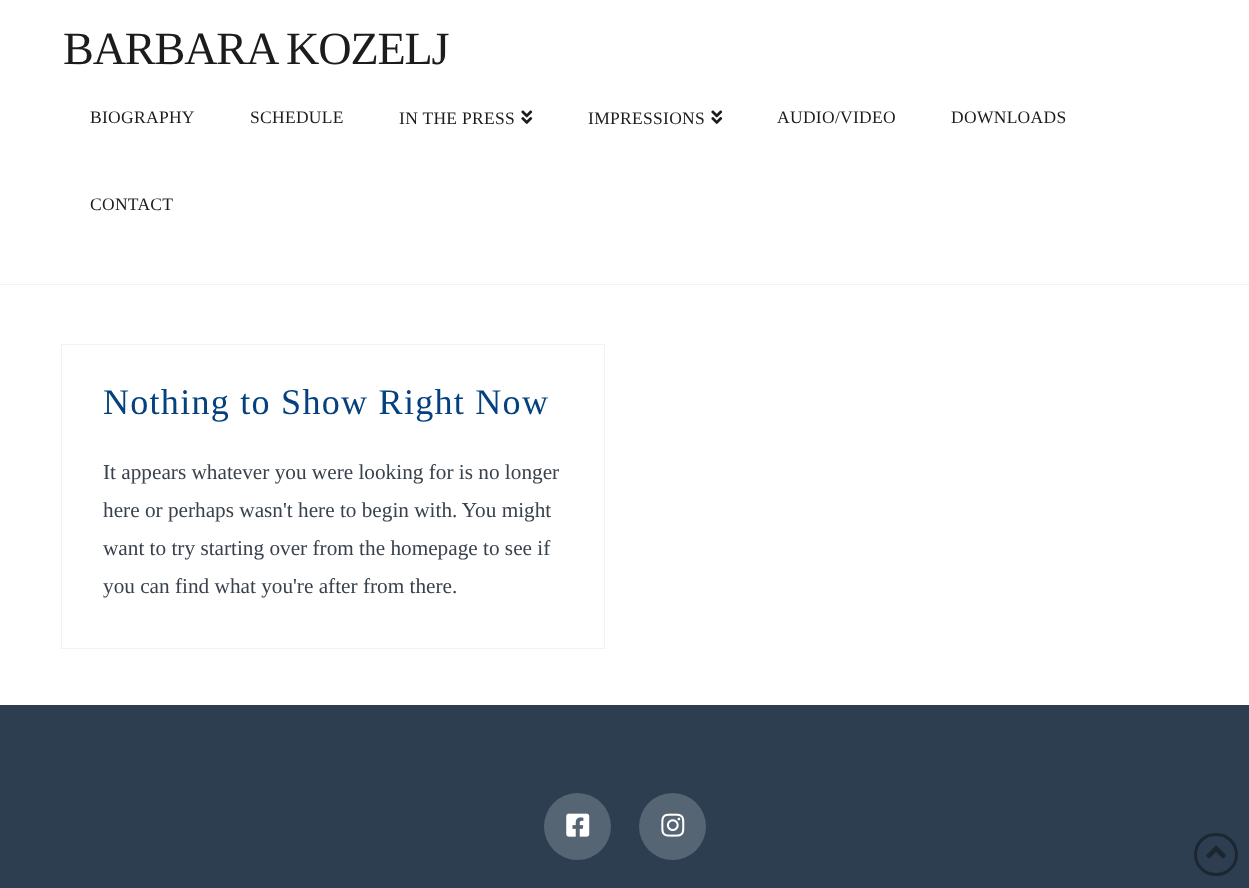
<svg xmlns="http://www.w3.org/2000/svg" width="1249" height="888" viewBox="0 0 1249 888">
  <style>
    .t1 { font: 46.25px Liberation Serif; letter-spacing: -1.2px; fill: #1c1c1c; }
    .t2 { font: 17.5px Liberation Serif; letter-spacing: 0.3px; fill: #1c1c1c; }
    .t3 { font: 36.1px Liberation Serif; letter-spacing: 1.25px; fill: #04417e; }
    .t4 { font: 21.25px Liberation Serif; fill: #39424c; }
  </style>
  <rect width="100%" height="100%" fill="#fff"/>
  <text x="63" y="64" class="t1">BARBARA KOZELJ</text>
  <text x="90" y="123" class="t2">BIOGRAPHY</text>
  <text x="250" y="123" class="t2">SCHEDULE</text>
  <text x="399" y="124" class="t2">IN THE PRESS</text>
  <image x="521" y="110" width="12" height="14" href="images/1.png"/>
  <text x="588" y="124" class="t2">IMPRESSIONS</text>
  <image x="711" y="110" width="12" height="14" href="images/1.png"/>
  <text x="777" y="123" class="t2">AUDIO/VIDEO</text>
  <text x="951" y="123" class="t2">DOWNLOADS</text>
  <text x="90" y="210" class="t2">CONTACT</text>
  <rect x="0" y="284" width="1249" height="1" fill="#f2f2f2"/>
  <rect x="61.5" y="344.5" width="543" height="304" fill="none" stroke="#f2f2f2"/>
  <text x="103" y="414" class="t3">Nothing to Show Right Now</text>
  <text x="103" y="479" class="t4">It appears whatever you were looking for is no longer</text>
  <text x="103" y="517" class="t4">here or perhaps wasn't here to begin with. You might</text>
  <text x="103" y="555" class="t4">want to try starting over from the homepage to see if</text>
  <text x="103" y="593" class="t4">you can find what you're after from there.</text>
  <rect x="0" y="705" width="1249" height="183" fill="#2c3e50"/>
  <circle cx="577.5" cy="826.5" r="33.5" fill="#566573"/>
  <image x="566" y="813" width="24" height="24" href="images/2.png"/>
  <circle cx="672.5" cy="826.5" r="33.5" fill="#566573"/>
  <image x="661" y="813" width="24" height="24" href="images/3.png"/>
  <rect x="1195.5" y="834.5" width="41" height="40" rx="20" fill="none" stroke="#1c2732" stroke-width="3"/>
  <image x="1206" y="845" width="20" height="14" href="images/4.png"/>
</svg>
